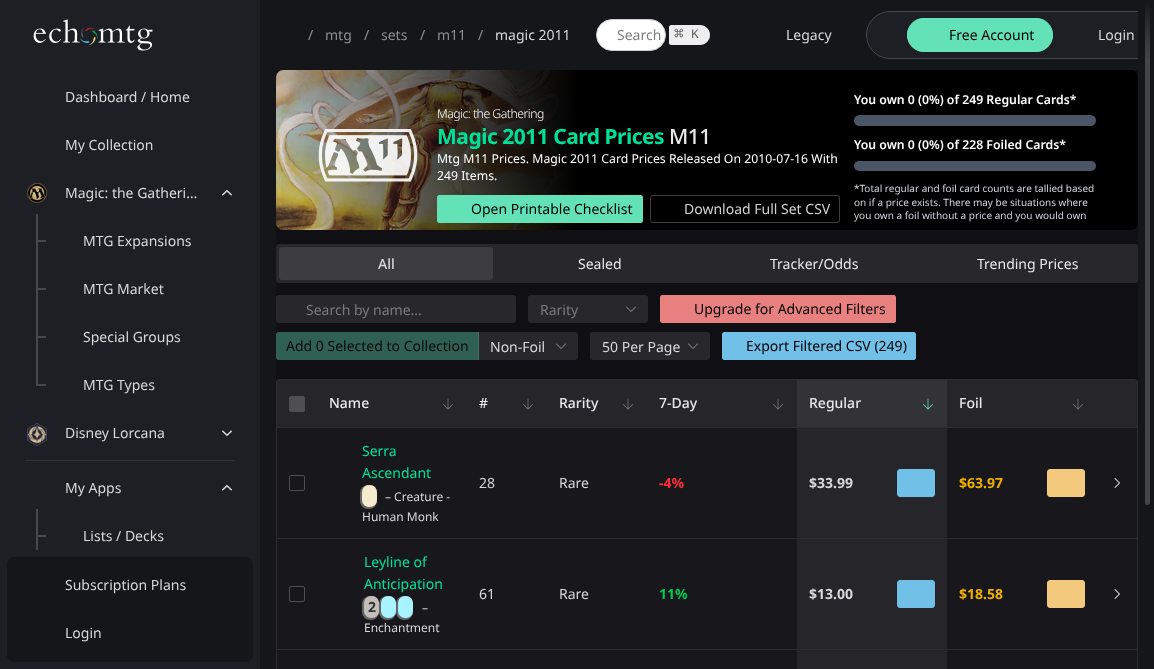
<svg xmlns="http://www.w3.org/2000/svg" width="1154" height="669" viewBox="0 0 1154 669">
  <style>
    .t1 { font: 14px Noto Sans; fill: #d8d8d9; }
    .t2 { font: 14px Noto Sans; fill: #8e8f91; }
    .t3 { font: 14px Noto Sans; fill: #808080; }
    .t4 { font: 16px DejaVu Sans Mono; fill: #666; }
    .t5 { font: 13px Liberation Mono; fill: #666; }
    .t6 { font: 14px Noto Sans; fill: #000; }
    .t7 { font: 300 12.25px Noto Sans; letter-spacing: -0.5px; fill: #fff; }
    .t8 { font: bold 21px Noto Sans; letter-spacing: -0.5px; fill: #00e099; }
    .t9 { font: 500 21px Noto Sans; letter-spacing: -0.5px; fill: #e9e9ea; }
    .t10 { font: 12.25px Noto Sans; fill: #fff; }
    .t11 { font: 14px Noto Sans; fill: #d1d1d1; }
    .t12 { font: 600 12.25px Noto Sans; fill: #fff; }
    .t13 { font: 10px Noto Sans; fill: #d1d5dc; }
    .t14 { font: 500 14px Noto Sans; fill: #d8d8d9; }
    .t15 { font: 14px Noto Sans; fill: #e9e9ea; }
    .t16 { font: 14px Noto Sans; fill: #7a7a7c; }
    .t17 { font: 14px Noto Sans; fill: #0a0a0c; }
    .t18 { font: 500 14px Noto Sans; fill: #e9e9ea; }
    .t19 { font: 14px Noto Sans; fill: #00e099; }
    .t20 { font: 12px Noto Sans; fill: #d8d8d9; }
    .t21 { font: bold 14px Noto Sans; fill: #fb2c36; }
    .t22 { font: bold 14px Noto Sans; fill: #d8d8d9; }
    .t23 { font: bold 14px Noto Sans; fill: #f0b100; }
    .t24 { font: bold 14px Noto Sans; fill: #333; }
    .t25 { font: bold 14px Noto Sans; fill: #00c951; }
  </style>
  <defs>
    <linearGradient id="g1" gradientUnits="userSpaceOnUse" x1="707" y1="0" x2="707" y2="70"><stop offset="0" stop-color="#14161a"/><stop offset="0.19" stop-color="#14161a" stop-opacity="0.74"/><stop offset="0.34" stop-color="#14161a" stop-opacity="0.54"/><stop offset="0.47" stop-color="#14161a" stop-opacity="0.38"/><stop offset="0.56" stop-color="#14161a" stop-opacity="0.28"/><stop offset="0.65" stop-color="#14161a" stop-opacity="0.19"/><stop offset="0.73" stop-color="#14161a" stop-opacity="0.12"/><stop offset="0.8" stop-color="#14161a" stop-opacity="0.07"/><stop offset="0.86" stop-color="#14161a" stop-opacity="0.04"/><stop offset="0.91" stop-color="#14161a" stop-opacity="0.02"/><stop offset="0.95" stop-color="#14161a" stop-opacity="0.01"/><stop offset="0.98" stop-color="#14161a" stop-opacity="0"/><stop offset="1" stop-color="#14161a" stop-opacity="0"/></linearGradient>
    <clipPath id="clip1"><rect x="276" y="0" width="862" height="70"/></clipPath>
    <linearGradient id="g2" gradientUnits="userSpaceOnUse" x1="276" y1="150" x2="578" y2="150"><stop offset="0" stop-color="#000" stop-opacity="0"/><stop offset="0.5" stop-color="#000" stop-opacity="0.6"/><stop offset="1" stop-color="#000"/></linearGradient>
  </defs>
  <rect width="100%" height="100%" fill="#14161a"/>
  <rect x="0" y="0" width="260" height="669" fill="#1d1f25"/>
  <image x="33" y="19" width="120" height="32" href="images/1.png"/>
  <text x="65" y="102" class="t1">Dashboard / Home</text>
  <text x="65" y="150" class="t1">My Collection</text>
  <image x="27" y="183" width="20" height="20" href="images/2.png"/>
  <text x="65" y="198" class="t1">Magic: the Gatheri…</text>
  <image x="222" y="190" width="10" height="6" href="images/3.png"/>
  <rect x="36" y="214" width="2" height="172" fill="#46474f"/>
  <rect x="38" y="240" width="8" height="2" fill="#46474f"/>
  <text x="83" y="246" class="t1">MTG Expansions</text>
  <rect x="38" y="288" width="8" height="2" fill="#46474f"/>
  <text x="83" y="294" class="t1">MTG Market</text>
  <rect x="38" y="336" width="8" height="2" fill="#46474f"/>
  <text x="83" y="342" class="t1">Special Groups</text>
  <rect x="38" y="384" width="8" height="2" fill="#46474f"/>
  <text x="83" y="390" class="t1">MTG Types</text>
  <image x="27" y="423" width="20" height="23" href="images/4.png"/>
  <text x="65" y="438" class="t1">Disney Lorcana</text>
  <image x="222" y="430" width="10" height="6" href="images/5.png"/>
  <rect x="25" y="460" width="210" height="1" fill="#313339"/>
  <text x="65" y="493" class="t1">My Apps</text>
  <image x="222" y="485" width="10" height="6" href="images/3.png"/>
  <rect x="36" y="509" width="2" height="41" fill="#46474f"/>
  <rect x="38" y="535" width="8" height="2" fill="#46474f"/>
  <text x="83" y="541" class="t1">Lists / Decks</text>
  <rect x="7" y="557" width="246" height="105" rx="7" fill="#14161a"/>
  <text x="65" y="590" class="t1">Subscription Plans</text>
  <text x="65" y="638" class="t1">Login</text>
  <text x="308" y="40" class="t2">/</text>
  <text x="325" y="40" class="t2">mtg</text>
  <text x="364" y="40" class="t2">/</text>
  <text x="381" y="40" class="t2">sets</text>
  <text x="420" y="40" class="t2">/</text>
  <text x="437" y="40" class="t2">m11</text>
  <text x="478" y="40" class="t2">/</text>
  <text x="495" y="40" class="t1">magic 2011</text>
  <rect x="596.5" y="19.5" width="69" height="31" rx="15.5" fill="#fff" stroke="#ccc"/>
  <text x="617" y="40" class="t3">Search</text>
  <path d="M671 25H700C705.5 25 710 29.5 710 35C710 40.5 705.5 45 700 45H671C670 45 669 44 669 43V27C669 26 670 25 671 25Z" fill="#eee"/>
  <text x="674" y="39" class="t4">⌘</text>
  <text x="691" y="38" class="t5">K</text>
  <text x="786" y="40" class="t1">Legacy</text>
  <rect x="1145" y="2" width="5" height="503" rx="2.5" fill="#434548"/>
  <rect x="1145" y="2" width="5" height="57" fill="url(#g1)"/>
  <g clip-path="url(#clip1)">
    <rect x="866.5" y="11.5" width="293" height="47" rx="23.5" fill="#1d1f25" stroke="#46474f"/>
  </g>
  <rect x="907" y="18" width="146" height="34" rx="17" fill="#63e2b7"/>
  <rect x="907.5" y="18.5" width="145" height="33" rx="16.5" fill="none" stroke="#63e2b7"/>
  <text x="949" y="40" class="t6">Free Account</text>
  <text x="1098" y="40" class="t1">Login</text>
  <rect x="276" y="70" width="862" height="312" fill="#101014"/>
  <rect x="276" y="70" width="862" height="160" rx="7" fill="#000"/>
  <image x="276" y="70" width="300" height="160" href="images/6.png"/>
  <rect x="281" y="70" width="295" height="160" fill="url(#g2)"/>
  <image x="318" y="129" width="100" height="53" href="images/7.png"/>
  <text x="437" y="118" class="t7">Magic: the Gathering</text>
  <text x="437" y="144" class="t8">Magic 2011 Card Prices</text>
  <text x="669" y="144" class="t9">M11</text>
  <text x="437" y="163" class="t10">Mtg M11 Prices. Magic 2011 Card Prices Released On 2010-07-16 With</text>
  <text x="437" y="180" class="t10">249 Items.</text>
  <rect x="437" y="195" width="206" height="28" rx="3" fill="#63e2b7"/>
  <rect x="437.5" y="195.5" width="205" height="27" rx="2.5" fill="none" stroke="#63e2b7"/>
  <text x="471" y="214" class="t6">Open Printable Checklist</text>
  <rect x="650.5" y="195.5" width="189" height="27" rx="2.5" fill="none" stroke="#3d3d3d"/>
  <text x="684" y="214" class="t11">Download Full Set CSV</text>
  <text x="854" y="104" class="t12">You own 0 (0%) of 249 Regular Cards*</text>
  <rect x="854" y="115" width="242" height="11" rx="5.5" fill="#4a5565"/>
  <text x="854" y="149" class="t12">You own 0 (0%) of 228 Foiled Cards*</text>
  <rect x="854" y="161" width="242" height="10" rx="5" fill="#4a5565"/>
  <text x="854" y="192" class="t13">*Total regular and foil card counts are tallied based</text>
  <text x="854" y="206" class="t13">on if a price exists. There may be situations where</text>
  <text x="854" y="219" class="t13">you own a foil without a price and you would own</text>
  <rect x="276" y="244" width="862" height="39" rx="3" fill="#28282c"/>
  <rect x="279" y="247" width="214" height="33" rx="3" fill="#3d3d41"/>
  <text x="378" y="269" class="t14">All</text>
  <text x="578" y="269" class="t15">Sealed</text>
  <text x="770" y="269" class="t15">Tracker/Odds</text>
  <text x="977" y="269" class="t15">Trending Prices</text>
  <rect x="276" y="295" width="240" height="28" rx="3" fill="#28282c"/>
  <text x="306" y="315" class="t16">Search by name...</text>
  <rect x="528" y="295" width="120" height="28" rx="3" fill="#28282c"/>
  <text x="540" y="315" class="t16">Rarity</text>
  <image x="626" y="306" width="10" height="6" href="images/8.png"/>
  <rect x="660" y="295" width="236" height="28" rx="3" fill="#e88080"/>
  <rect x="660.5" y="295.5" width="235" height="27" rx="2.5" fill="none" stroke="#e88080"/>
  <text x="694" y="314" class="t6">Upgrade for Advanced Filters</text>
  <path d="M279 332H479V360H279C277.5 360 276 358.5 276 357V335C276 333.5 277.5 332 279 332Z" fill="#306052"/>
  <path d="M279 332.5H478.5V359.5H279C277.5 359.5 276.5 358.5 276.5 357V335C276.5 333.5 277.5 332.5 279 332.5Z" fill="none" stroke="#306052"/>
  <text x="286" y="351" class="t17">Add 0 Selected to Collection</text>
  <path d="M478 332H575C576.5 332 578 333.5 578 335V357C578 358.5 576.5 360 575 360H478Z" fill="#ffffff1a"/>
  <text x="490" y="352" class="t1">Non-Foil</text>
  <image x="556" y="343" width="10" height="6" href="images/9.png"/>
  <rect x="590" y="332" width="120" height="28" rx="3" fill="#28282c"/>
  <text x="602" y="352" class="t1">50 Per Page</text>
  <image x="688" y="343" width="10" height="6" href="images/8.png"/>
  <rect x="722" y="332" width="194" height="28" rx="3" fill="#70c0e8"/>
  <rect x="722.5" y="332.5" width="193" height="27" rx="2.5" fill="none" stroke="#70c0e8"/>
  <text x="746" y="351" class="t6">Export Filtered CSV (249)</text>
  <rect x="276.5" y="379.5" width="861" height="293" rx="2.5" fill="none" stroke="#2d2d30"/>
  <path d="M279 380H1135C1136 380 1137 381 1137 382V428H277V382C277 381 278 380 279 380Z" fill="#26262a"/>
  <path d="M291 396H303C304 396 305 397 305 398V410C305 411 304 412 303 412H291C290 412 289 411 289 410V398C289 397 290 396 291 396Z" fill="#4f4f53"/>
  <rect x="277" y="427" width="860" height="1" fill="#2d2d30"/>
  <text x="329" y="408" class="t18">Name</text>
  <image x="443" y="398" width="10" height="12" href="images/10.png"/>
  <text x="479" y="408" class="t18">#</text>
  <image x="523" y="398" width="10" height="12" href="images/10.png"/>
  <text x="559" y="408" class="t18">Rarity</text>
  <image x="623" y="398" width="10" height="12" href="images/10.png"/>
  <text x="659" y="408" class="t18">7-Day</text>
  <image x="773" y="398" width="10" height="12" href="images/10.png"/>
  <rect x="797" y="380" width="150" height="47" fill="#333337"/>
  <text x="809" y="408" class="t18">Regular</text>
  <image x="923" y="398" width="10" height="12" href="images/11.png"/>
  <text x="959" y="408" class="t18">Foil</text>
  <image x="1073" y="398" width="10" height="12" href="images/10.png"/>
  <rect x="277" y="428" width="860" height="241" fill="#18181c"/>
  <rect x="289.5" y="475.5" width="15" height="15" rx="1.5" fill="none" stroke="#4f4f52"/>
  <rect x="277" y="538" width="860" height="1" fill="#2d2d30"/>
  <text x="362" y="456" class="t19">Serra</text>
  <text x="362" y="478" class="t19">Ascendant</text>
  <rect x="360" y="485" width="17" height="24" rx="8" fill="#656565" filter="blur(0.5px)"/>
  <rect x="362" y="485" width="15" height="22" rx="7" fill="#f4eace"/>
  <text x="385" y="501" class="t20">– Creature -</text>
  <text x="362" y="521" class="t20">Human Monk</text>
  <text x="479" y="488" class="t1">28</text>
  <text x="559" y="488" class="t1">Rare</text>
  <text x="659" y="488" class="t21">-4%</text>
  <rect x="797" y="428" width="150" height="110" fill="#26262a"/>
  <text x="809" y="488" class="t22">$33.99</text>
  <rect x="897.5" y="469.5" width="37" height="27" rx="2.5" fill="#70c0e8" stroke="#70c0e8"/>
  <text x="959" y="488" class="t23">$63.97</text>
  <rect x="1047.5" y="469.5" width="37" height="27" rx="2.5" fill="#f2c97d" stroke="#f2c97d"/>
  <image x="1114" y="478" width="6" height="10" href="images/12.png"/>
  <rect x="289.5" y="586.5" width="15" height="15" rx="1.5" fill="none" stroke="#4f4f52"/>
  <rect x="277" y="649" width="860" height="1" fill="#2d2d30"/>
  <text x="364" y="567" class="t19">Leyline of</text>
  <text x="364" y="589" class="t19">Anticipation</text>
  <rect x="362" y="596" width="17" height="24" rx="8" fill="#656565" filter="blur(0.5px)"/>
  <rect x="364" y="596" width="15" height="22" rx="7" fill="#c2bfba"/>
  <text x="368" y="612" class="t24">2</text>
  <rect x="379" y="596" width="17" height="24" rx="8" fill="#656565" filter="blur(0.5px)"/>
  <rect x="381" y="596" width="15" height="22" rx="7" fill="#a9f2ff"/>
  <rect x="396" y="596" width="17" height="24" rx="8" fill="#656565" filter="blur(0.5px)"/>
  <rect x="398" y="596" width="15" height="22" rx="7" fill="#a9f2ff"/>
  <text x="422" y="612" class="t20">–</text>
  <text x="364" y="632" class="t20">Enchantment</text>
  <text x="479" y="599" class="t1">61</text>
  <text x="559" y="599" class="t1">Rare</text>
  <text x="659" y="599" class="t25">11%</text>
  <rect x="797" y="539" width="150" height="110" fill="#26262a"/>
  <text x="809" y="599" class="t22">$13.00</text>
  <rect x="897.5" y="580.5" width="37" height="27" rx="2.5" fill="#70c0e8" stroke="#70c0e8"/>
  <text x="959" y="599" class="t23">$18.58</text>
  <rect x="1047.5" y="580.5" width="37" height="27" rx="2.5" fill="#f2c97d" stroke="#f2c97d"/>
  <image x="1114" y="589" width="6" height="10" href="images/12.png"/>
  <rect x="797" y="650" width="150" height="19" fill="#26262a"/>
</svg>
